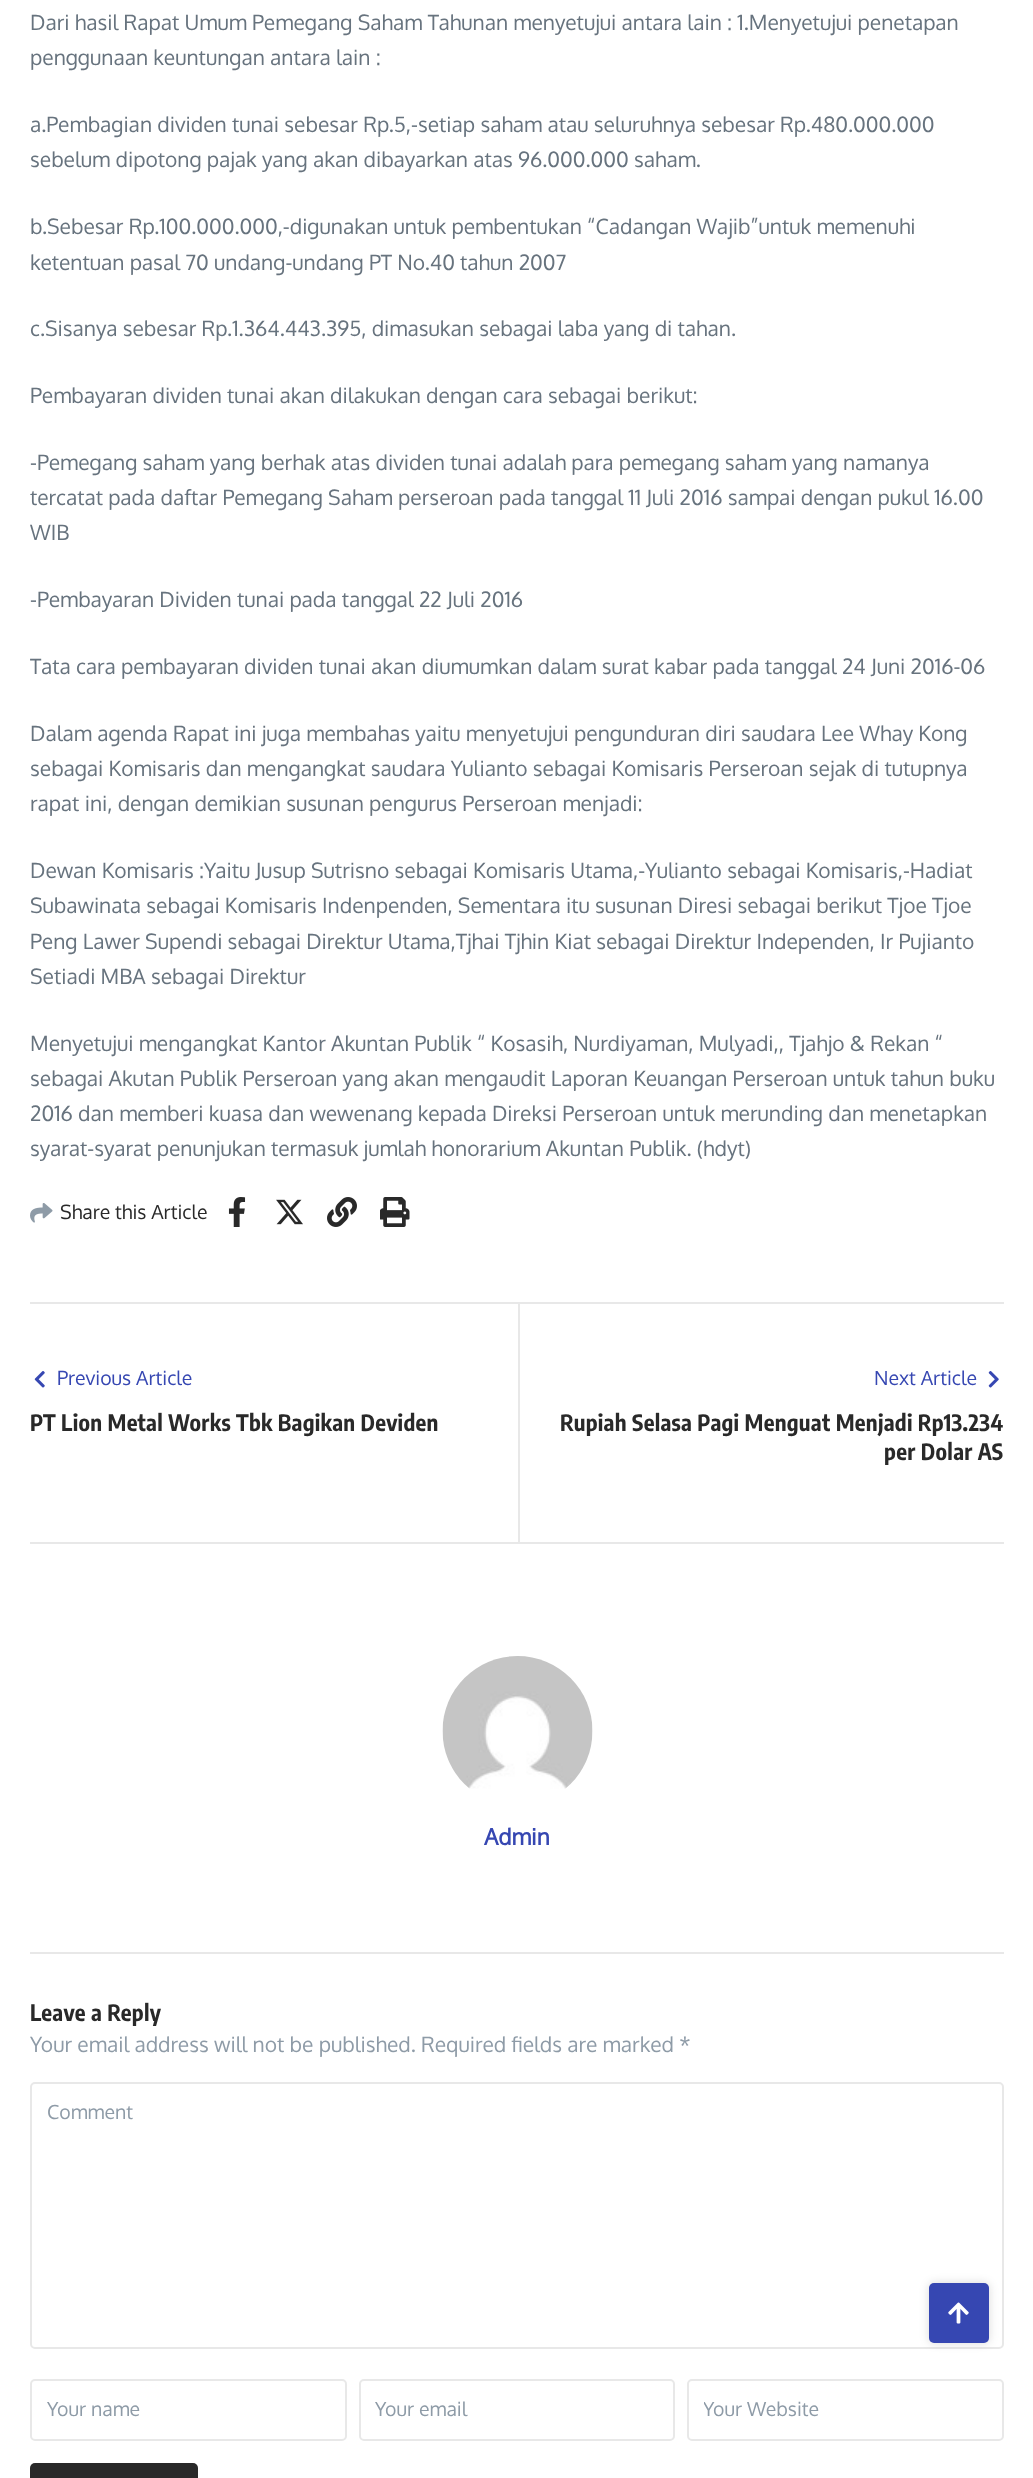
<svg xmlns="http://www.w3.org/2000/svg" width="1033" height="2478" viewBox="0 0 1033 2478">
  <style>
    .t1 { font: 21px Oxygen; fill: #67737e; }
    .t2 { font: 19.5px Oxygen; fill: #292929; }
    .t3 { font: 19.5px Oxygen; fill: #3647b2; }
    .t4 { font: bold 22.5px Encode Sans Condensed; letter-spacing: 0.3px; fill: #292929; }
    .t5 { font: bold 22.5px Oxygen; fill: #3647b2; }
    .t6 { font: 21px Oxygen; fill: #8e9ba7; }
    .t7 { font: 19.5px Oxygen; fill: #8e9ba7; }
  </style>
  <defs>
    <clipPath id="clip1"><rect x="704" y="2397" width="283" height="24"/></clipPath>
  </defs>
  <rect width="100%" height="100%" fill="#fff"/>
  <text x="30" y="30" class="t1">Dari hasil Rapat Umum Pemegang Saham Tahunan menyetujui antara lain : 1.Menyetujui penetapan</text>
  <text x="30" y="65" class="t1">penggunaan keuntungan antara lain :</text>
  <text x="30" y="132" class="t1">a.Pembagian dividen tunai sebesar Rp.5,-setiap saham atau seluruhnya sebesar Rp.480.000.000</text>
  <text x="30" y="167" class="t1">sebelum dipotong pajak yang akan dibayarkan atas 96.000.000 saham.</text>
  <text x="30" y="234" class="t1">b.Sebesar Rp.100.000.000,-digunakan untuk pembentukan “Cadangan Wajib”untuk memenuhi</text>
  <text x="30" y="270" class="t1">ketentuan pasal 70 undang-undang PT No.40 tahun 2007</text>
  <text x="30" y="336" class="t1">c.Sisanya sebesar Rp.1.364.443.395, dimasukan sebagai laba yang di tahan.</text>
  <text x="30" y="403" class="t1">Pembayaran dividen tunai akan dilakukan dengan cara sebagai berikut:</text>
  <text x="30" y="470" class="t1">-Pemegang saham yang berhak atas dividen tunai adalah para pemegang saham yang namanya</text>
  <text x="30" y="505" class="t1">tercatat pada daftar Pemegang Saham perseroan pada tanggal 11 Juli 2016 sampai dengan pukul 16.00</text>
  <text x="30" y="540" class="t1">WIB</text>
  <text x="30" y="607" class="t1">-Pembayaran Dividen tunai pada tanggal 22 Juli 2016</text>
  <text x="30" y="674" class="t1">Tata cara pembayaran dividen tunai akan diumumkan dalam surat kabar pada tanggal 24 Juni 2016-06</text>
  <text x="30" y="741" class="t1">Dalam agenda Rapat ini juga membahas yaitu menyetujui pengunduran diri saudara Lee Whay Kong</text>
  <text x="30" y="776" class="t1">sebagai Komisaris dan mengangkat saudara Yulianto sebagai Komisaris Perseroan sejak di tutupnya</text>
  <text x="30" y="811" class="t1">rapat ini, dengan demikian susunan pengurus Perseroan menjadi:</text>
  <text x="30" y="878" class="t1">Dewan Komisaris :Yaitu Jusup Sutrisno sebagai Komisaris Utama,-Yulianto sebagai Komisaris,-Hadiat</text>
  <text x="30" y="913" class="t1">Subawinata sebagai Komisaris Indenpenden, Sementara itu susunan Diresi sebagai berikut Tjoe Tjoe</text>
  <text x="30" y="949" class="t1">Peng Lawer Supendi sebagai Direktur Utama,Tjhai Tjhin Kiat sebagai Direktur Independen, Ir Pujianto</text>
  <text x="30" y="984" class="t1">Setiadi MBA sebagai Direktur</text>
  <text x="30" y="1051" class="t1">Menyetujui mengangkat Kantor Akuntan Publik “ Kosasih, Nurdiyaman, Mulyadi,, Tjahjo &amp; Rekan “</text>
  <text x="30" y="1086" class="t1">sebagai Akutan Publik Perseroan yang akan mengaudit Laporan Keuangan Perseroan untuk tahun buku</text>
  <text x="30" y="1121" class="t1">2016 dan memberi kuasa dan wewenang kepada Direksi Perseroan untuk merunding dan menetapkan</text>
  <text x="30" y="1156" class="t1">syarat-syarat penunjukan termasuk jumlah honorarium Akuntan Publik. (hdyt)</text>
  <image x="30" y="1203" width="23" height="20" href="images/1.png"/>
  <text x="60" y="1219" class="t2">Share this Article</text>
  <image x="228" y="1197" width="18" height="30" href="images/2.png"/>
  <image x="276" y="1199" width="27" height="26" href="images/3.png"/>
  <image x="327" y="1197" width="30" height="30" href="images/4.png"/>
  <image x="380" y="1197" width="30" height="30" href="images/5.png"/>
  <rect x="30" y="1302" width="974" height="2" fill="#e8e8e8"/>
  <rect x="30" y="1542" width="974" height="2" fill="#e8e8e8"/>
  <image x="34" y="1371" width="11" height="17" href="images/6.png"/>
  <text x="57" y="1385" class="t3">Previous Article</text>
  <text x="30" y="1431" class="t4">PT Lion Metal Works Tbk Bagikan Deviden</text>
  <rect x="518" y="1304" width="2" height="238" fill="#e8e8e8"/>
  <text x="874" y="1385" class="t3">Next Article</text>
  <image x="988" y="1371" width="11" height="17" href="images/7.png"/>
  <text x="560" y="1431" class="t4">Rupiah Selasa Pagi Menguat Menjadi Rp13.234</text>
  <text x="884" y="1460" class="t4">per Dolar AS</text>
  <rect x="30" y="1952" width="974" height="2" fill="#e8e8e8"/>
  <image x="442" y="1656" width="151" height="133" href="images/8.png"/>
  <text x="484" y="1845" class="t5">Admin</text>
  <text x="30" y="2021" class="t4">Leave a Reply</text>
  <text x="30" y="2052" class="t6">Your email address will not be published. Required fields are marked *</text>
  <rect x="31" y="2083" width="972" height="265" rx="4" fill="none" stroke="#e8e8e8" stroke-width="2"/>
  <text x="47" y="2119" class="t7">Comment</text>
  <rect x="31" y="2380" width="315" height="60" rx="4" fill="none" stroke="#e8e8e8" stroke-width="2"/>
  <text x="47" y="2416" class="t7">Your name</text>
  <rect x="360" y="2380" width="314" height="60" rx="4" fill="none" stroke="#e8e8e8" stroke-width="2"/>
  <text x="375" y="2416" class="t7">Your email</text>
  <rect x="688" y="2380" width="315" height="60" rx="4" fill="none" stroke="#e8e8e8" stroke-width="2"/>
  <g clip-path="url(#clip1)">
    <text x="703" y="2416" class="t7">Your Website</text>
  </g>
  <rect x="30" y="2463" width="168" height="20" rx="5" fill="#292929"/>
  <rect x="929" y="2283" width="60" height="60" rx="5" fill="#00000026" filter="blur(5px)"/>
  <rect x="929" y="2283" width="60" height="60" rx="5" fill="#3647b2"/>
  <image x="948" y="2302" width="21" height="22" href="images/9.png"/>
</svg>
